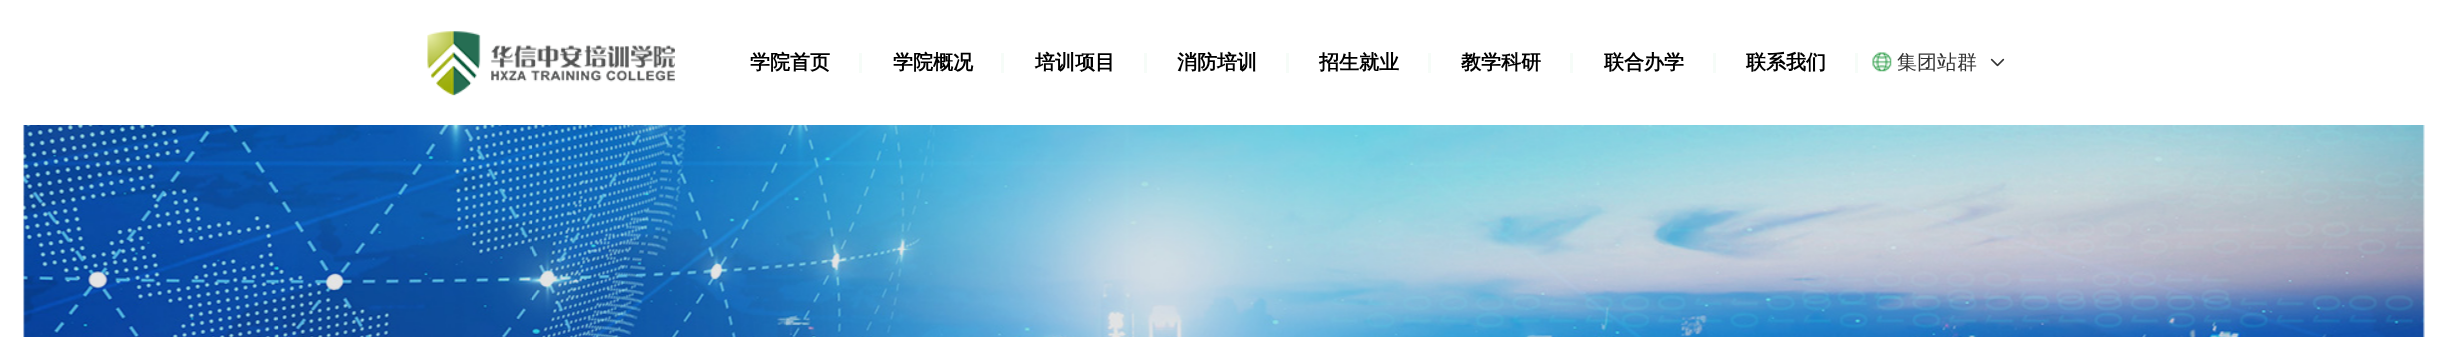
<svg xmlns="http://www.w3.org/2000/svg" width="2446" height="337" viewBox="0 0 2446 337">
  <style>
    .t1 { font: bold 20px WenQuanYi Zen Hei; fill: #000; }
    .t2 { font: 500 20px WenQuanYi Zen Hei; fill: #333; }
  </style>
  <rect width="100%" height="100%" fill="#fff"/>
  <image x="427" y="31" width="248" height="65" href="images/1.png"/>
  <text x="750" y="69" class="t1">学院首页</text>
  <rect x="859" y="53" width="3" height="20" fill="#f6fcf8"/>
  <text x="893" y="69" class="t1">学院概况</text>
  <rect x="1001" y="53" width="3" height="20" fill="#f6fcf8"/>
  <text x="1035" y="69" class="t1">培训项目</text>
  <rect x="1144" y="53" width="3" height="20" fill="#f6fcf8"/>
  <text x="1177" y="69" class="t1">消防培训</text>
  <rect x="1286" y="53" width="3" height="20" fill="#f6fcf8"/>
  <text x="1319" y="69" class="t1">招生就业</text>
  <rect x="1428" y="53" width="3" height="20" fill="#f6fcf8"/>
  <text x="1461" y="69" class="t1">教学科研</text>
  <rect x="1570" y="53" width="3" height="20" fill="#f6fcf8"/>
  <text x="1604" y="69" class="t1">联合办学</text>
  <rect x="1713" y="53" width="3" height="20" fill="#f6fcf8"/>
  <text x="1746" y="69" class="t1">联系我们</text>
  <rect x="1855" y="53" width="3" height="20" fill="#f6fcf8"/>
  <image x="1872" y="52" width="20" height="20" href="images/2.png"/>
  <text x="1897" y="69" class="t2">集团站群</text>
  <image x="1990" y="58" width="15" height="9" href="images/3.png"/>
  <image x="23" y="125" width="2402" height="212" href="images/4.png"/>
</svg>
